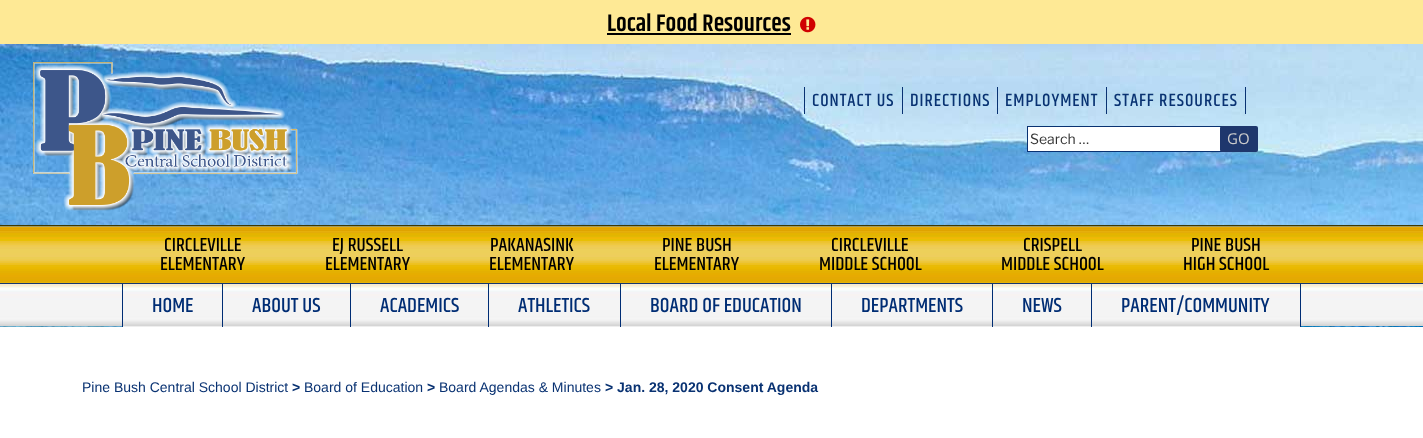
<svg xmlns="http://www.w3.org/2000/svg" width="1423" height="438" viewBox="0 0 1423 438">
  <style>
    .t1 { font: 600 24px Khand; fill: #000; }
    .t2 { font: 500 18px Khand; letter-spacing: 1px; fill: #093272; }
    .t3 { font: 100 14px Libre Franklin; fill: #333; }
    .t4 { font: 15px Open Sans; fill: #ccc; }
    .t5 { font: 500 19.25px Khand; fill: #000; }
    .t6 { font: 500 20.75px Khand; fill: #002d74; }
    .t7 { font: 14px Liberation Sans; fill: #093272; }
    .t8 { font: bold 14px Liberation Sans; fill: #093272; }
  </style>
  <rect width="100%" height="100%" fill="#fee995"/>
  <text x="607" y="31" class="t1">Local Food Resources</text>
  <rect x="607" y="33" width="184" height="2" fill="#000"/>
  <image x="800" y="16" width="16" height="17" href="images/1.png"/>
  <image x="0" y="44" width="1423" height="283" href="images/2.png"/>
  <image x="33" y="62" width="265" height="149" href="images/3.png"/>
  <rect x="902" y="87" width="1" height="27" fill="#093272"/>
  <rect x="804" y="87" width="1" height="27" fill="#093272"/>
  <text x="812" y="106" class="t2">CONTACT US</text>
  <rect x="997" y="87" width="1" height="27" fill="#093272"/>
  <text x="910" y="106" class="t2">DIRECTIONS</text>
  <rect x="1106" y="87" width="1" height="27" fill="#093272"/>
  <text x="1005" y="106" class="t2">EMPLOYMENT</text>
  <rect x="1245" y="87" width="1" height="27" fill="#093272"/>
  <text x="1114" y="106" class="t2">STAFF RESOURCES</text>
  <rect x="1028" y="127" width="193" height="24" fill="#fff"/>
  <rect x="1027.5" y="126.5" width="195" height="25" fill="none" stroke="#093272"/>
  <text x="1030" y="144" class="t3">Search …</text>
  <rect x="1220" y="126" width="38" height="26" rx="2" fill="#1e376d"/>
  <text x="1227" y="144" class="t4">GO</text>
  <image x="0" y="225" width="1423" height="59" href="images/4.png"/>
  <text x="164" y="251" class="t5">CIRCLEVILLE</text>
  <text x="160" y="270" class="t5">ELEMENTARY</text>
  <text x="332" y="251" class="t5">EJ RUSSELL</text>
  <text x="325" y="270" class="t5">ELEMENTARY</text>
  <text x="490" y="251" class="t5">PAKANASINK</text>
  <text x="489" y="270" class="t5">ELEMENTARY</text>
  <text x="662" y="251" class="t5">PINE BUSH</text>
  <text x="654" y="270" class="t5">ELEMENTARY</text>
  <text x="831" y="251" class="t5">CIRCLEVILLE</text>
  <text x="819" y="270" class="t5">MIDDLE SCHOOL</text>
  <text x="1023" y="251" class="t5">CRISPELL</text>
  <text x="1001" y="270" class="t5">MIDDLE SCHOOL</text>
  <text x="1191" y="251" class="t5">PINE BUSH</text>
  <text x="1183" y="270" class="t5">HIGH SCHOOL</text>
  <image x="0" y="284" width="1423" height="42" href="images/5.png"/>
  <rect x="122" y="326" width="1178" height="1" fill="#eee"/>
  <rect x="122" y="284" width="1" height="43" fill="#002d74"/>
  <text x="152" y="312" class="t6">HOME</text>
  <rect x="222" y="284" width="1" height="43" fill="#002d74"/>
  <text x="252" y="312" class="t6">ABOUT US</text>
  <rect x="350" y="284" width="1" height="43" fill="#002d74"/>
  <text x="380" y="312" class="t6">ACADEMICS</text>
  <rect x="488" y="284" width="1" height="43" fill="#002d74"/>
  <text x="518" y="312" class="t6">ATHLETICS</text>
  <rect x="620" y="284" width="1" height="43" fill="#002d74"/>
  <text x="650" y="312" class="t6">BOARD OF EDUCATION</text>
  <rect x="831" y="284" width="1" height="43" fill="#002d74"/>
  <text x="861" y="312" class="t6">DEPARTMENTS</text>
  <rect x="992" y="284" width="1" height="43" fill="#002d74"/>
  <text x="1022" y="312" class="t6">NEWS</text>
  <rect x="1300" y="284" width="1" height="43" fill="#002d74"/>
  <rect x="1091" y="284" width="1" height="43" fill="#002d74"/>
  <text x="1121" y="312" class="t6">PARENT/COMMUNITY</text>
  <rect x="0" y="327" width="1423" height="111" fill="#fff"/>
  <text x="82" y="392" class="t7">Pine Bush Central School District</text>
  <text x="292" y="392" class="t8">&gt;</text>
  <text x="304" y="392" class="t7">Board of Education</text>
  <text x="427" y="392" class="t8">&gt;</text>
  <text x="439" y="392" class="t7">Board Agendas &amp; Minutes</text>
  <text x="605" y="392" class="t8">&gt; Jan. 28, 2020 Consent Agenda</text>
</svg>
